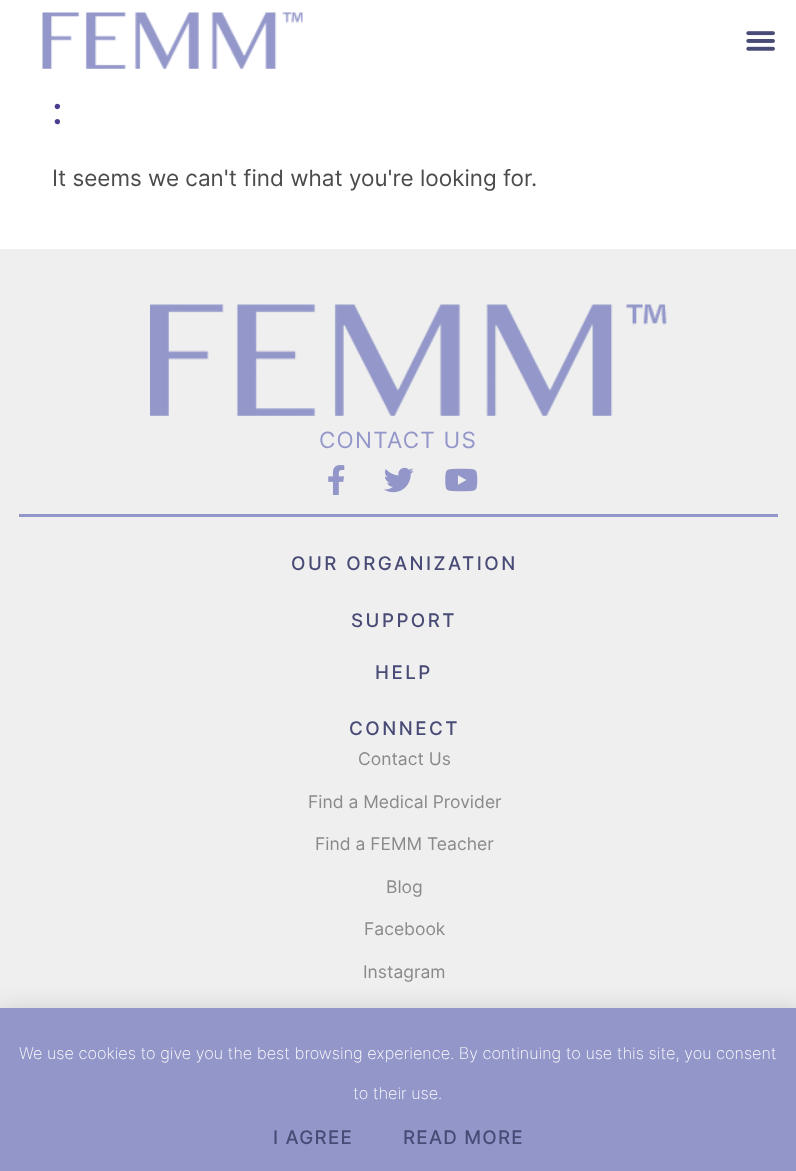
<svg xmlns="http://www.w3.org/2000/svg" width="796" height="1171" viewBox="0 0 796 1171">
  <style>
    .t1 { font: 500 38px Inter; fill: #4a3d90; }
    .t2 { font: 22.5px Inter; fill: #4b4b4b; }
    .t3 { font: 22.5px Inter; letter-spacing: 1.25px; fill: #9396c9; }
    .t4 { font: 500 18.75px Inter; letter-spacing: 2.5px; fill: #484b75; }
    .t5 { font: 17.5px Inter; fill: #8a8a8a; }
    .t6 { font: 200 16.25px Inter; fill: #fff; }
    .t7 { font: 500 18.75px Inter; letter-spacing: 1.25px; fill: #484b75; }
  </style>
  <rect width="100%" height="100%" fill="#fff"/>
  <image x="42" y="12" width="261" height="57" href="images/1.png"/>
  <image x="746" y="31" width="29" height="20" href="images/2.png"/>
  <text x="52" y="124" class="t1">:</text>
  <text x="52" y="186" class="t2">It seems we can't find what you're looking for.</text>
  <rect x="0" y="249" width="796" height="759" fill="#efefef"/>
  <image x="150" y="304" width="517" height="112" href="images/3.png"/>
  <text x="319" y="448" class="t3">CONTACT US</text>
  <image x="328" y="465" width="17" height="30" href="images/4.png"/>
  <image x="384" y="467" width="30" height="26" href="images/5.png"/>
  <image x="445" y="468" width="33" height="24" href="images/6.png"/>
  <rect x="19" y="514" width="759" height="3" fill="#9396c9"/>
  <text x="291" y="570" class="t4">OUR ORGANIZATION</text>
  <text x="351" y="627" class="t4">SUPPORT</text>
  <text x="375" y="679" class="t4">HELP</text>
  <text x="349" y="735" class="t4">CONNECT</text>
  <text x="358" y="765" class="t5">Contact Us</text>
  <text x="308" y="808" class="t5">Find a Medical Provider</text>
  <text x="315" y="850" class="t5">Find a FEMM Teacher</text>
  <text x="386" y="893" class="t5">Blog</text>
  <text x="364" y="935" class="t5">Facebook</text>
  <text x="363" y="978" class="t5">Instagram</text>
  <rect x="-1" y="1014" width="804" height="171" fill="#00000033" filter="blur(14.5px)"/>
  <rect x="0" y="1008" width="796" height="163" fill="#9396c9"/>
  <text x="19" y="1059" class="t6">We use cookies to give you the best browsing experience. By continuing to use this site, you consent</text>
  <text x="353" y="1099" class="t6">to their use.</text>
  <text x="273" y="1144" class="t7">I AGREE</text>
  <text x="403" y="1144" class="t7">READ MORE</text>
</svg>
